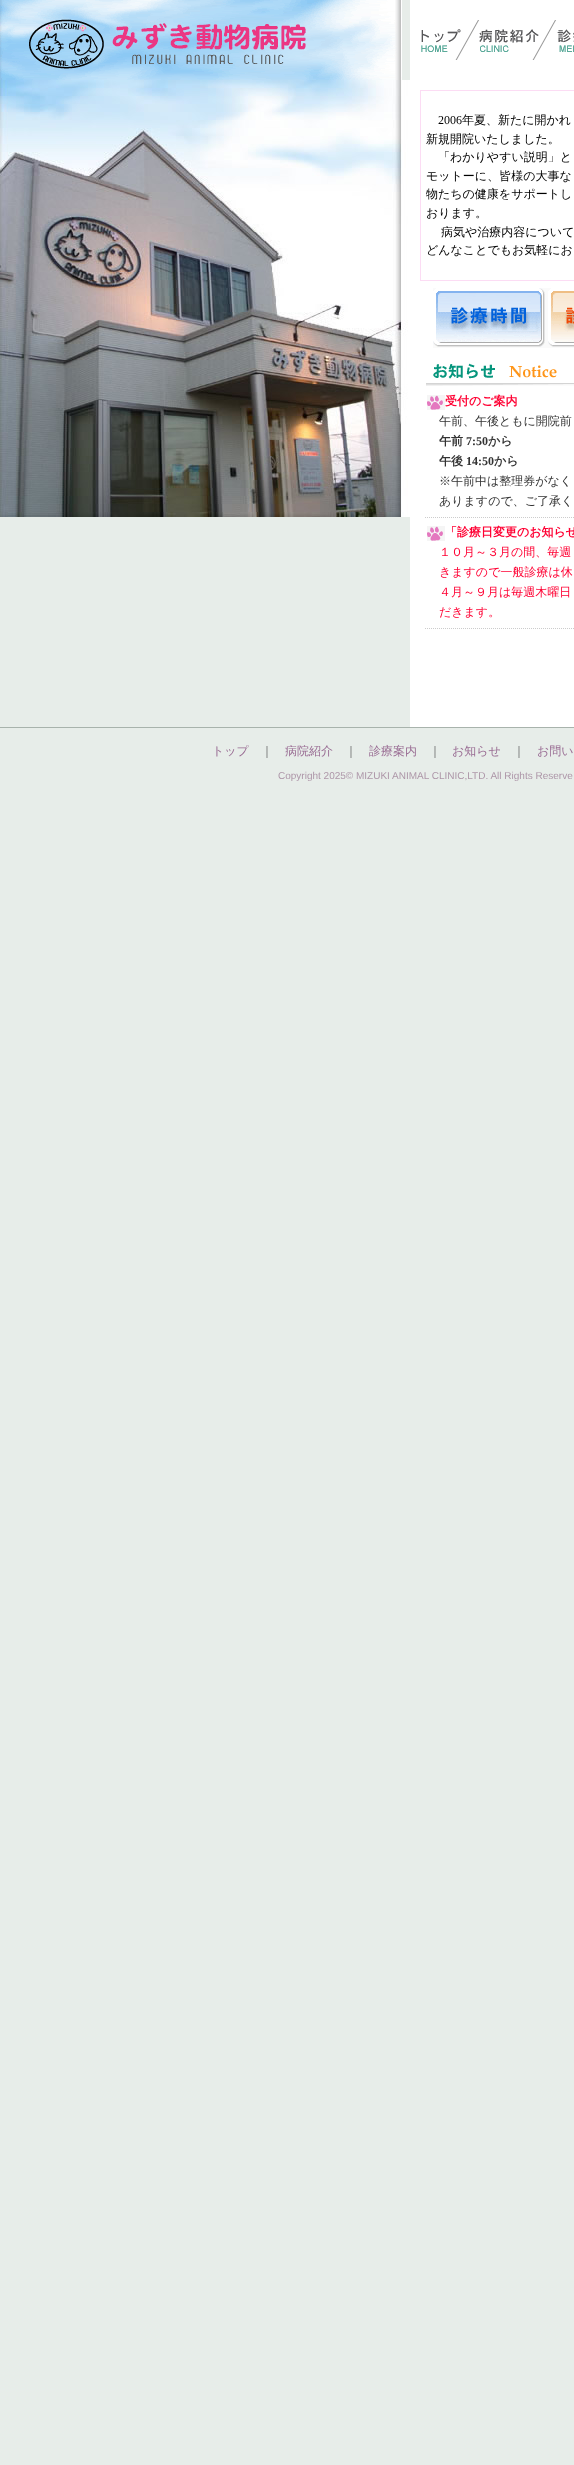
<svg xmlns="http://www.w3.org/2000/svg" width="574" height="2465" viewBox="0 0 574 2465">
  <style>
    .t1 { font: 12px Liberation Serif; fill: #000; }
    .t2 { font: 500 12px WenQuanYi Zen Hei; fill: #000; }
    .t3 { font: bold 12px WenQuanYi Zen Hei; fill: #f03; }
    .t4 { font: 500 12px WenQuanYi Zen Hei; fill: #333; }
    .t5 { font: bold 12px WenQuanYi Zen Hei; fill: #333; }
    .t6 { font: bold 12px Liberation Serif; fill: #333; }
    .t7 { font: 500 12px WenQuanYi Zen Hei; fill: #f03; }
    .t8 { font: 500 12px WenQuanYi Zen Hei; fill: #996c93; }
    .t9 { font: 500 12px WenQuanYi Zen Hei; fill: #666; }
    .t10 { font: 10px Liberation Sans; fill: #ad96a8; }
  </style>
  <rect width="100%" height="100%" fill="#e7ede9"/>
  <image x="0" y="0" width="402" height="80" href="images/1.png"/>
  <image x="410" y="0" width="58" height="80" href="images/2.png"/>
  <image x="468" y="0" width="79" height="80" href="images/3.png"/>
  <image x="547" y="0" width="27" height="80" href="images/4.png"/>
  <image x="0" y="80" width="410" height="437" href="images/5.png"/>
  <rect x="410" y="80" width="164" height="647" fill="#fff"/>
  <rect x="420.5" y="90.5" width="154" height="190" fill="none" stroke="#fcdcf4"/>
  <text x="438" y="124" class="t1">2006</text>
  <text x="462" y="124" class="t2">年夏、新たに開かれ</text>
  <text x="426" y="143" class="t2">新規開院いたしました。</text>
  <text x="438" y="161" class="t2">「わかりやすい説明」と</text>
  <text x="426" y="180" class="t2">モットーに、皆様の大事な</text>
  <text x="426" y="198" class="t2">物たちの健康をサポートし</text>
  <text x="426" y="217" class="t2">おります。</text>
  <text x="441" y="236" class="t2">病気や治療内容について</text>
  <text x="426" y="254" class="t2">どんなことでもお気軽にお</text>
  <image x="433" y="288" width="113" height="60" href="images/6.png"/>
  <image x="546" y="288" width="28" height="60" href="images/7.png"/>
  <image x="426" y="363" width="148" height="23" href="images/8.png"/>
  <path d="M425 517.5H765" fill="none" stroke="#ccc" stroke-dasharray="1 1"/>
  <image x="427" y="395" width="18" height="15" href="images/9.png"/>
  <text x="445" y="405" class="t3">受付のご案内</text>
  <text x="439" y="425" class="t4">午前、午後ともに開院前</text>
  <text x="439" y="445" class="t5">午前</text>
  <text x="466" y="445" class="t6">7:50</text>
  <text x="488" y="445" class="t5">から</text>
  <text x="439" y="465" class="t5">午後</text>
  <text x="466" y="465" class="t6">14:50</text>
  <text x="494" y="465" class="t5">から</text>
  <text x="439" y="485" class="t4">※午前中は整理券がなく</text>
  <text x="439" y="505" class="t4">ありますので、ご了承く</text>
  <path d="M425 628.5H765" fill="none" stroke="#ccc" stroke-dasharray="1 1"/>
  <image x="427" y="526" width="18" height="15" href="images/9.png"/>
  <text x="445" y="536" class="t3">「診療日変更のお知らせ</text>
  <text x="439" y="556" class="t7">１０月～３月の間、毎週</text>
  <text x="439" y="576" class="t7">きますので一般診療は休</text>
  <text x="439" y="596" class="t7">４月～９月は毎週木曜日</text>
  <text x="439" y="616" class="t7">だきます。</text>
  <rect x="0" y="727" width="574" height="1" fill="#a8b3ac"/>
  <text x="212" y="755" class="t8">トップ</text>
  <text x="261" y="755" class="t9">｜</text>
  <text x="285" y="755" class="t8">病院紹介</text>
  <text x="345" y="755" class="t9">｜</text>
  <text x="369" y="755" class="t8">診療案内</text>
  <text x="429" y="755" class="t9">｜</text>
  <text x="452" y="755" class="t8">お知らせ</text>
  <text x="513" y="755" class="t9">｜</text>
  <text x="537" y="755" class="t8">お問い</text>
  <text x="278" y="779" class="t10">Copyright 2025© MIZUKI ANIMAL CLINIC,LTD. All Rights Reserve</text>
</svg>
